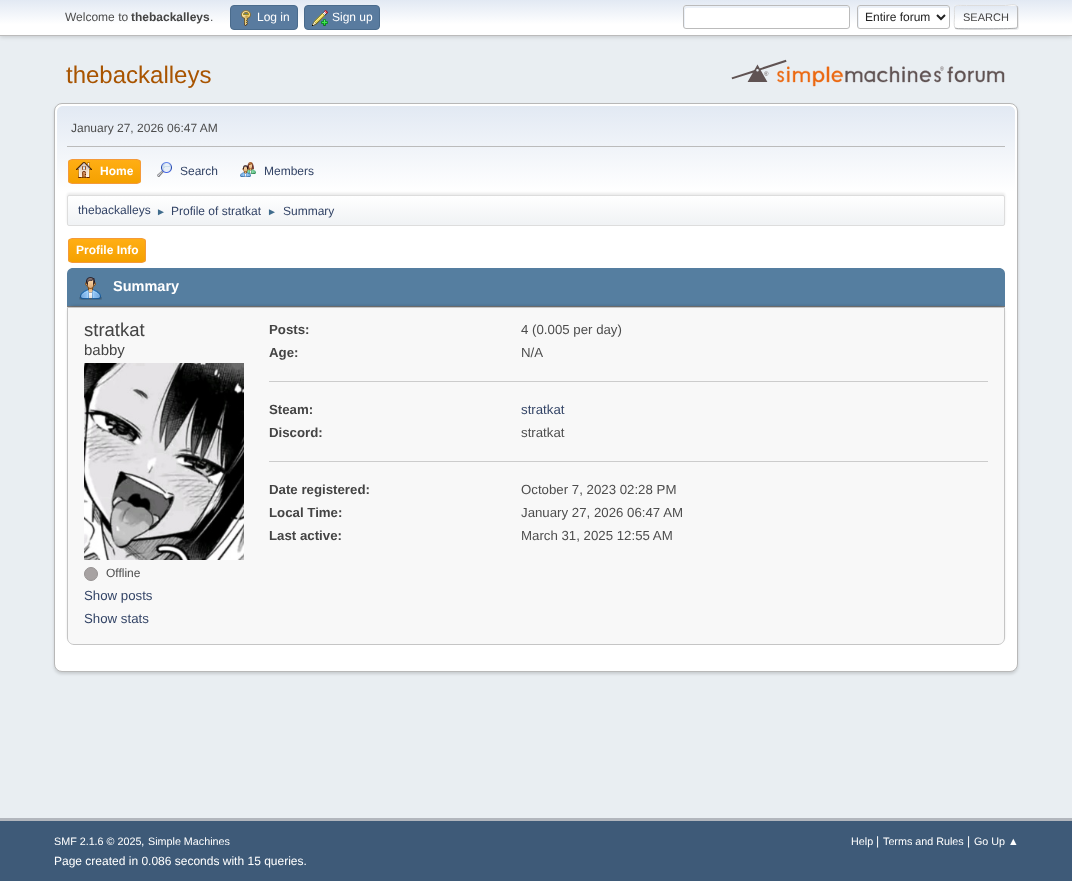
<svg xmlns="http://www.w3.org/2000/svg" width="1072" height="881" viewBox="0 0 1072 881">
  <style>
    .t1 { font: 12px Liberation Sans; fill: #4d4d4d; }
    .t2 { font: bold 12px Liberation Sans; fill: #444; }
    .t3 { font: 12px Liberation Sans; fill: #fff; }
    .t4 { font: 12px Liberation Sans; fill: #222; }
    .t5 { font: 11px Liberation Sans; fill: #444; }
    .t6 { font: 24px Liberation Sans; fill: #a85400; }
    .t7 { font: bold 12px Liberation Sans; fill: #fff; }
    .t8 { font: 12px Liberation Sans; fill: #346; }
    .t9 { font: 10px Liberation Sans; fill: #3f6b8c; }
    .t10 { font: bold 14.5px Liberation Sans; fill: #fff; }
    .t11 { font: 18.5px Liberation Sans; fill: #444; }
    .t12 { font: 15px Liberation Sans; fill: #444; }
    .t13 { font: 13.25px Liberation Sans; fill: #346; }
    .t14 { font: bold 13.25px Liberation Sans; fill: #444; }
    .t15 { font: 13.25px Liberation Sans; fill: #4d4d4d; }
    .t16 { font: 10.75px Liberation Sans; fill: #fff; }
  </style>
  <defs>
    <linearGradient id="g1" gradientUnits="userSpaceOnUse" x1="536" y1="0" x2="536" y2="35"><stop offset="0" stop-color="#e2e9f3"/><stop offset="0.7" stop-color="#fff"/></linearGradient>
    <clipPath id="clip1"><rect x="954" y="5" width="64" height="24" rx="3"/></clipPath>
    <linearGradient id="g2" gradientUnits="userSpaceOnUse" x1="986" y1="-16" x2="986" y2="6"><stop offset="0" stop-color="#e2e9f3"/><stop offset="0.7" stop-color="#fff"/></linearGradient>
    <linearGradient id="g3" gradientUnits="userSpaceOnUse" x1="986" y1="6" x2="986" y2="28"><stop offset="0" stop-color="#e2e9f3"/><stop offset="0.7" stop-color="#fff"/></linearGradient>
    <linearGradient id="g4" gradientUnits="userSpaceOnUse" x1="986" y1="28" x2="986" y2="50"><stop offset="0" stop-color="#e2e9f3"/><stop offset="0.7" stop-color="#fff"/></linearGradient>
    <linearGradient id="g5" gradientUnits="userSpaceOnUse" x1="536" y1="106" x2="536" y2="228"><stop offset="0" stop-color="#e2e9f3"/><stop offset="0.7" stop-color="#fff"/></linearGradient>
    <clipPath id="clip2"><rect x="68" y="159" width="73" height="25" rx="4"/></clipPath>
    <linearGradient id="g6" gradientUnits="userSpaceOnUse" x1="105" y1="160" x2="105" y2="183"><stop offset="0" stop-color="#ffae14"/><stop offset="1" stop-color="#f5a100"/></linearGradient>
    <clipPath id="clip3"><rect x="67" y="195" width="938" height="31" rx="2"/></clipPath>
    <linearGradient id="g7" gradientUnits="userSpaceOnUse" x1="536" y1="196" x2="536" y2="225"><stop offset="0" stop-color="#fff"/><stop offset="0.95" stop-color="#f1f3f5"/></linearGradient>
    <clipPath id="clip4"><rect x="68" y="238" width="78" height="25" rx="4"/></clipPath>
    <linearGradient id="g8" gradientUnits="userSpaceOnUse" x1="107" y1="239" x2="107" y2="262"><stop offset="0" stop-color="#ffae14"/><stop offset="1" stop-color="#f5a100"/></linearGradient>
  </defs>
  <rect width="100%" height="100%" fill="#e9eef2"/>
  <rect x="0" y="1" width="1072" height="36" fill="#00000029" filter="blur(2px)"/>
  <rect x="0" y="0" width="1072" height="35" fill="url(#g1)"/>
  <rect x="0" y="35" width="1072" height="1" fill="#bbb"/>
  <text x="65" y="21" class="t1">Welcome to</text>
  <text x="131" y="21" class="t2">thebackalleys</text>
  <text x="210" y="21" class="t1">.</text>
  <rect x="230.5" y="5.5" width="67" height="24" rx="3.5" fill="#597b9f" stroke="#4a6b8c"/>
  <image x="241" y="10" width="10" height="16" href="images/1.png"/>
  <text x="257" y="21" class="t3">Log in</text>
  <rect x="304.5" y="5.5" width="75" height="24" rx="3.5" fill="#597b9f" stroke="#4a6b8c"/>
  <image x="312" y="10" width="16" height="16" href="images/2.png"/>
  <text x="332" y="21" class="t3">Sign up</text>
  <rect x="683" y="5" width="167" height="24" rx="3" fill="#fff"/>
  <path d="M687 8H849V7L847 6H686C685 6 684 7 684 8C684 11 683 27 685 28V10C685 9 686 8 687 8Z" fill="#ecf1f8"/>
  <rect x="683.5" y="5.5" width="166" height="23" rx="2.5" fill="none" stroke="#bbb"/>
  <rect x="857" y="5" width="93" height="24" rx="3" fill="#fff"/>
  <path d="M861 8H949C949 3 937 6 932 6H874C856 6 858 2 858 17C858 19 857 27 859 28V10C859 9 860 8 861 8Z" fill="#ecf1f8"/>
  <rect x="857.5" y="5.5" width="92" height="23" rx="2.5" fill="none" stroke="#bbb"/>
  <path d="M937 15L941 19L945 15" fill="none" stroke="#222" stroke-width="2"/>
  <text x="865" y="21" class="t4">Entire forum</text>
  <rect x="955" y="6" width="64" height="24" rx="3" fill="#dddddd91" filter="blur(0.5px)"/>
  <g clip-path="url(#clip1)">
    <rect x="954" y="5" width="64" height="1" fill="url(#g2)"/>
    <rect x="954" y="6" width="64" height="22" fill="url(#g3)"/>
    <rect x="954" y="28" width="64" height="1" fill="url(#g4)"/>
  </g>
  <path d="M1017 6C1017 6.5 1017.5 7.5 1017.5 8V26C1017.5 26.5 1017 27.5 1017 28" fill="none" stroke="#bbb"/>
  <path d="M1017 28H1016.5C1015.5 29 962 29 957 28.5L955 28" fill="none" stroke="#aaa"/>
  <path d="M955 28C953.5 26 954.5 19 954.5 17C954.5 3.5 952.5 5.5 966.5 5.5H1005.5C1009 5.5 1014 3.5 1017 6" fill="none" stroke="#ddd"/>
  <text x="963" y="21" class="t5">SEARCH</text>
  <text x="66" y="83" class="t6">thebackalleys</text>
  <image x="731" y="59" width="274" height="28" href="images/3.png"/>
  <rect x="54" y="105" width="964" height="569" rx="8" fill="#00000024" filter="blur(1.5px)"/>
  <rect x="54.5" y="103.5" width="963" height="568" rx="7.5" fill="#fff" stroke="#b8b8b8"/>
  <path d="M63 106H1009C1012.5 106 1015 108.5 1015 112V228H57V112C57 108.5 59.5 106 63 106Z" fill="url(#g5)"/>
  <rect x="67" y="146" width="938" height="1" fill="#bbb"/>
  <text x="71" y="132" class="t1">January 27, 2026 06:47 AM</text>
  <g clip-path="url(#clip2)">
    <rect x="68" y="160" width="73" height="23" fill="url(#g6)"/>
  </g>
  <rect x="68.5" y="159.5" width="72" height="24" rx="3.5" fill="none" stroke="#f49a3a"/>
  <image x="76" y="162" width="16" height="16" href="images/4.png"/>
  <text x="100" y="175" class="t7">Home</text>
  <image x="157" y="162" width="15" height="15" href="images/5.png"/>
  <text x="180" y="175" class="t8">Search</text>
  <image x="240" y="162" width="16" height="15" href="images/6.png"/>
  <text x="264" y="175" class="t8">Members</text>
  <rect x="67" y="193" width="938" height="31" rx="2" fill="#00000014" filter="blur(1px)"/>
  <g clip-path="url(#clip3)">
    <rect x="67" y="196" width="938" height="29" fill="url(#g7)"/>
  </g>
  <rect x="67.5" y="195.5" width="937" height="30" rx="1.5" fill="none" stroke="#ddd"/>
  <text x="78" y="214" class="t8">thebackalleys</text>
  <text x="156" y="215" class="t9">►</text>
  <text x="171" y="215" class="t8">Profile of stratkat</text>
  <text x="267" y="215" class="t9">►</text>
  <text x="283" y="215" class="t8">Summary</text>
  <g clip-path="url(#clip4)">
    <rect x="68" y="239" width="78" height="23" fill="url(#g8)"/>
  </g>
  <rect x="68.5" y="238.5" width="77" height="24" rx="3.5" fill="none" stroke="#f49a3a"/>
  <text x="76" y="254" class="t7">Profile Info</text>
  <path d="M73 268H999C1002.5 268 1005 270.5 1005 274V307H67V274C67 270.5 69.5 268 73 268Z" fill="#557ea0"/>
  <rect x="67" y="306" width="938" height="1" fill="#777"/>
  <image x="79" y="277" width="23" height="23" href="images/7.png"/>
  <text x="113" y="291" class="t10">Summary</text>
  <rect x="67" y="305" width="938" height="338" rx="7" fill="#0000001a" filter="blur(1px)"/>
  <path d="M67.5 307.5H1004.5V638C1004.5 641.5 1001.5 644.5 998 644.5H74C70.5 644.5 67.5 641.5 67.5 638Z" fill="#f8f8f8" stroke="#c5c5c5"/>
  <text x="84" y="336" class="t11">stratkat</text>
  <text x="84" y="355" class="t12">babby</text>
  <image x="84" y="363" width="160" height="197" href="images/8.png"/>
  <circle cx="91" cy="574" r="6.5" fill="#a7a2a2" stroke="#969292"/>
  <text x="106" y="577" class="t1">Offline</text>
  <text x="84" y="600" class="t13">Show posts</text>
  <text x="84" y="623" class="t13">Show stats</text>
  <rect x="269" y="381" width="719" height="1" fill="#ccc"/>
  <text x="269" y="334" class="t14">Posts:</text>
  <text x="521" y="334" class="t15">4 (0.005 per day)</text>
  <text x="269" y="357" class="t14">Age:</text>
  <text x="521" y="357" class="t15">N/A</text>
  <rect x="269" y="461" width="719" height="1" fill="#ccc"/>
  <text x="269" y="414" class="t14">Steam:</text>
  <text x="521" y="414" class="t13">stratkat</text>
  <text x="269" y="437" class="t14">Discord:</text>
  <text x="521" y="437" class="t15">stratkat</text>
  <text x="269" y="494" class="t14">Date registered:</text>
  <text x="521" y="494" class="t15">October 7, 2023 02:28 PM</text>
  <text x="269" y="517" class="t14">Local Time:</text>
  <text x="521" y="517" class="t15">January 27, 2026 06:47 AM</text>
  <text x="269" y="540" class="t14">Last active:</text>
  <text x="521" y="540" class="t15">March 31, 2025 12:55 AM</text>
  <rect x="0" y="821" width="1072" height="60" fill="#3e5a78"/>
  <rect x="0" y="818" width="1072" height="3" fill="#b2b6bd"/>
  <text x="54" y="845" class="t16">SMF 2.1.6 © 2025</text>
  <text x="141" y="845" class="t3">,</text>
  <text x="148" y="845" class="t16">Simple Machines</text>
  <text x="851" y="845" class="t16">Help</text>
  <text x="876" y="845" class="t3">|</text>
  <text x="883" y="845" class="t16">Terms and Rules</text>
  <text x="967" y="845" class="t3">|</text>
  <text x="974" y="845" class="t16">Go Up ▲</text>
  <text x="54" y="865" class="t3">Page created in 0.086 seconds with 15 queries.</text>
</svg>
